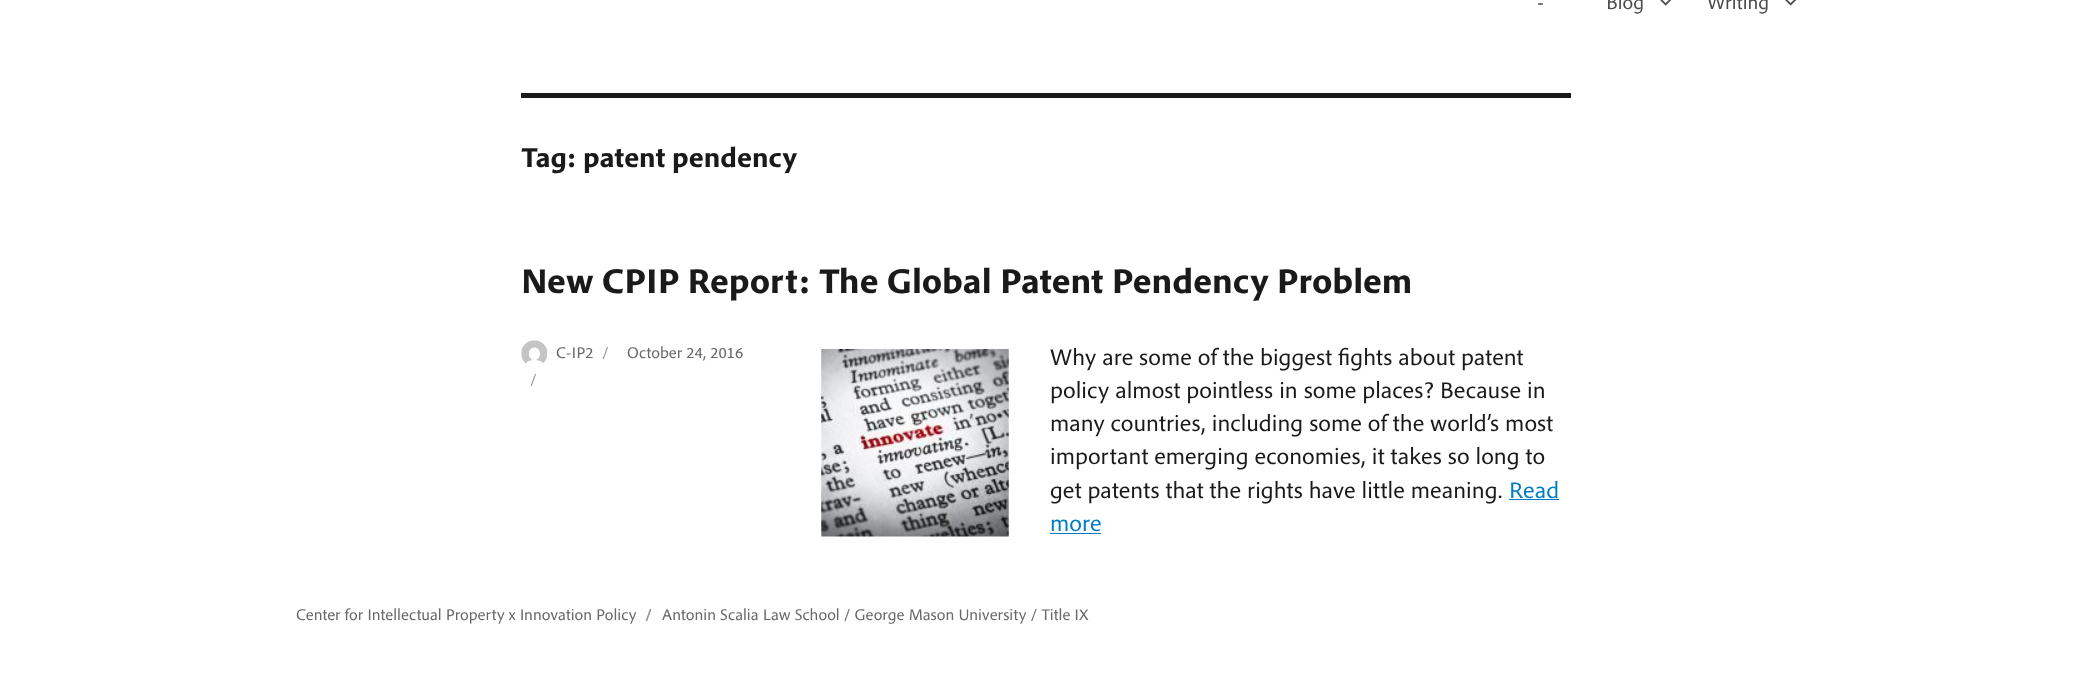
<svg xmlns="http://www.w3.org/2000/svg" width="2092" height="675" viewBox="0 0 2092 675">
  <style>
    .t1 { font: 20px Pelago; fill: #4b4b4b; }
    .t2 { font: bold 28.75px Pelago; fill: #1a1a1a; }
    .t3 { font: bold 36px Pelago; fill: #1a1a1a; }
    .t4 { font: 16.25px Pelago; fill: #686868; }
    .t5 { font: 16.25px Pelago; fill: #959595; }
    .t6 { font: 23.75px Pelago; fill: #1a1a1a; }
    .t7 { font: 23.75px Pelago; fill: #007dc5; }
    .t8 { font: bold 16.25px Pelago; fill: #959595; }
  </style>
  <rect width="100%" height="100%" fill="#fff"/>
  <text x="1537" y="9" class="t1">-</text>
  <text x="1606" y="9" class="t1">Blog</text>
  <image x="1660" y="0" width="12" height="6" href="images/1.png"/>
  <text x="1707" y="9" class="t1">Writing</text>
  <image x="1785" y="0" width="12" height="6" href="images/1.png"/>
  <rect x="521" y="93" width="1050" height="5" fill="#1a1a1a"/>
  <text x="521" y="167" class="t2">Tag: patent pendency</text>
  <text x="521" y="293" class="t3">New CPIP Report: The Global Patent Pendency Problem</text>
  <text x="627" y="358" class="t4">October 24, 2016</text>
  <text x="530" y="385" class="t5">/</text>
  <image x="521" y="340" width="27" height="24" href="images/2.png"/>
  <text x="556" y="358" class="t4">C-IP2</text>
  <text x="602" y="358" class="t5">/</text>
  <image x="821" y="349" width="188" height="188" href="images/3.png"/>
  <text x="1050" y="365" class="t6">Why are some of the biggest fights about patent</text>
  <text x="1050" y="398" class="t6">policy almost pointless in some places? Because in</text>
  <text x="1050" y="431" class="t6">many countries, including some of the world’s most</text>
  <text x="1050" y="464" class="t6">important emerging economies, it takes so long to</text>
  <text x="1050" y="498" class="t6">get patents that the rights have little meaning.</text>
  <text x="1509" y="498" class="t7">Read</text>
  <rect x="1509" y="499" width="50" height="1" fill="#007dc5"/>
  <text x="1050" y="531" class="t7">more</text>
  <rect x="1050" y="533" width="51" height="1" fill="#007dc5"/>
  <text x="296" y="620" class="t4">Center for Intellectual Property x Innovation Policy</text>
  <text x="645" y="620" class="t8">/</text>
  <text x="662" y="620" class="t4">Antonin Scalia Law School / George Mason University / Title IX</text>
</svg>
